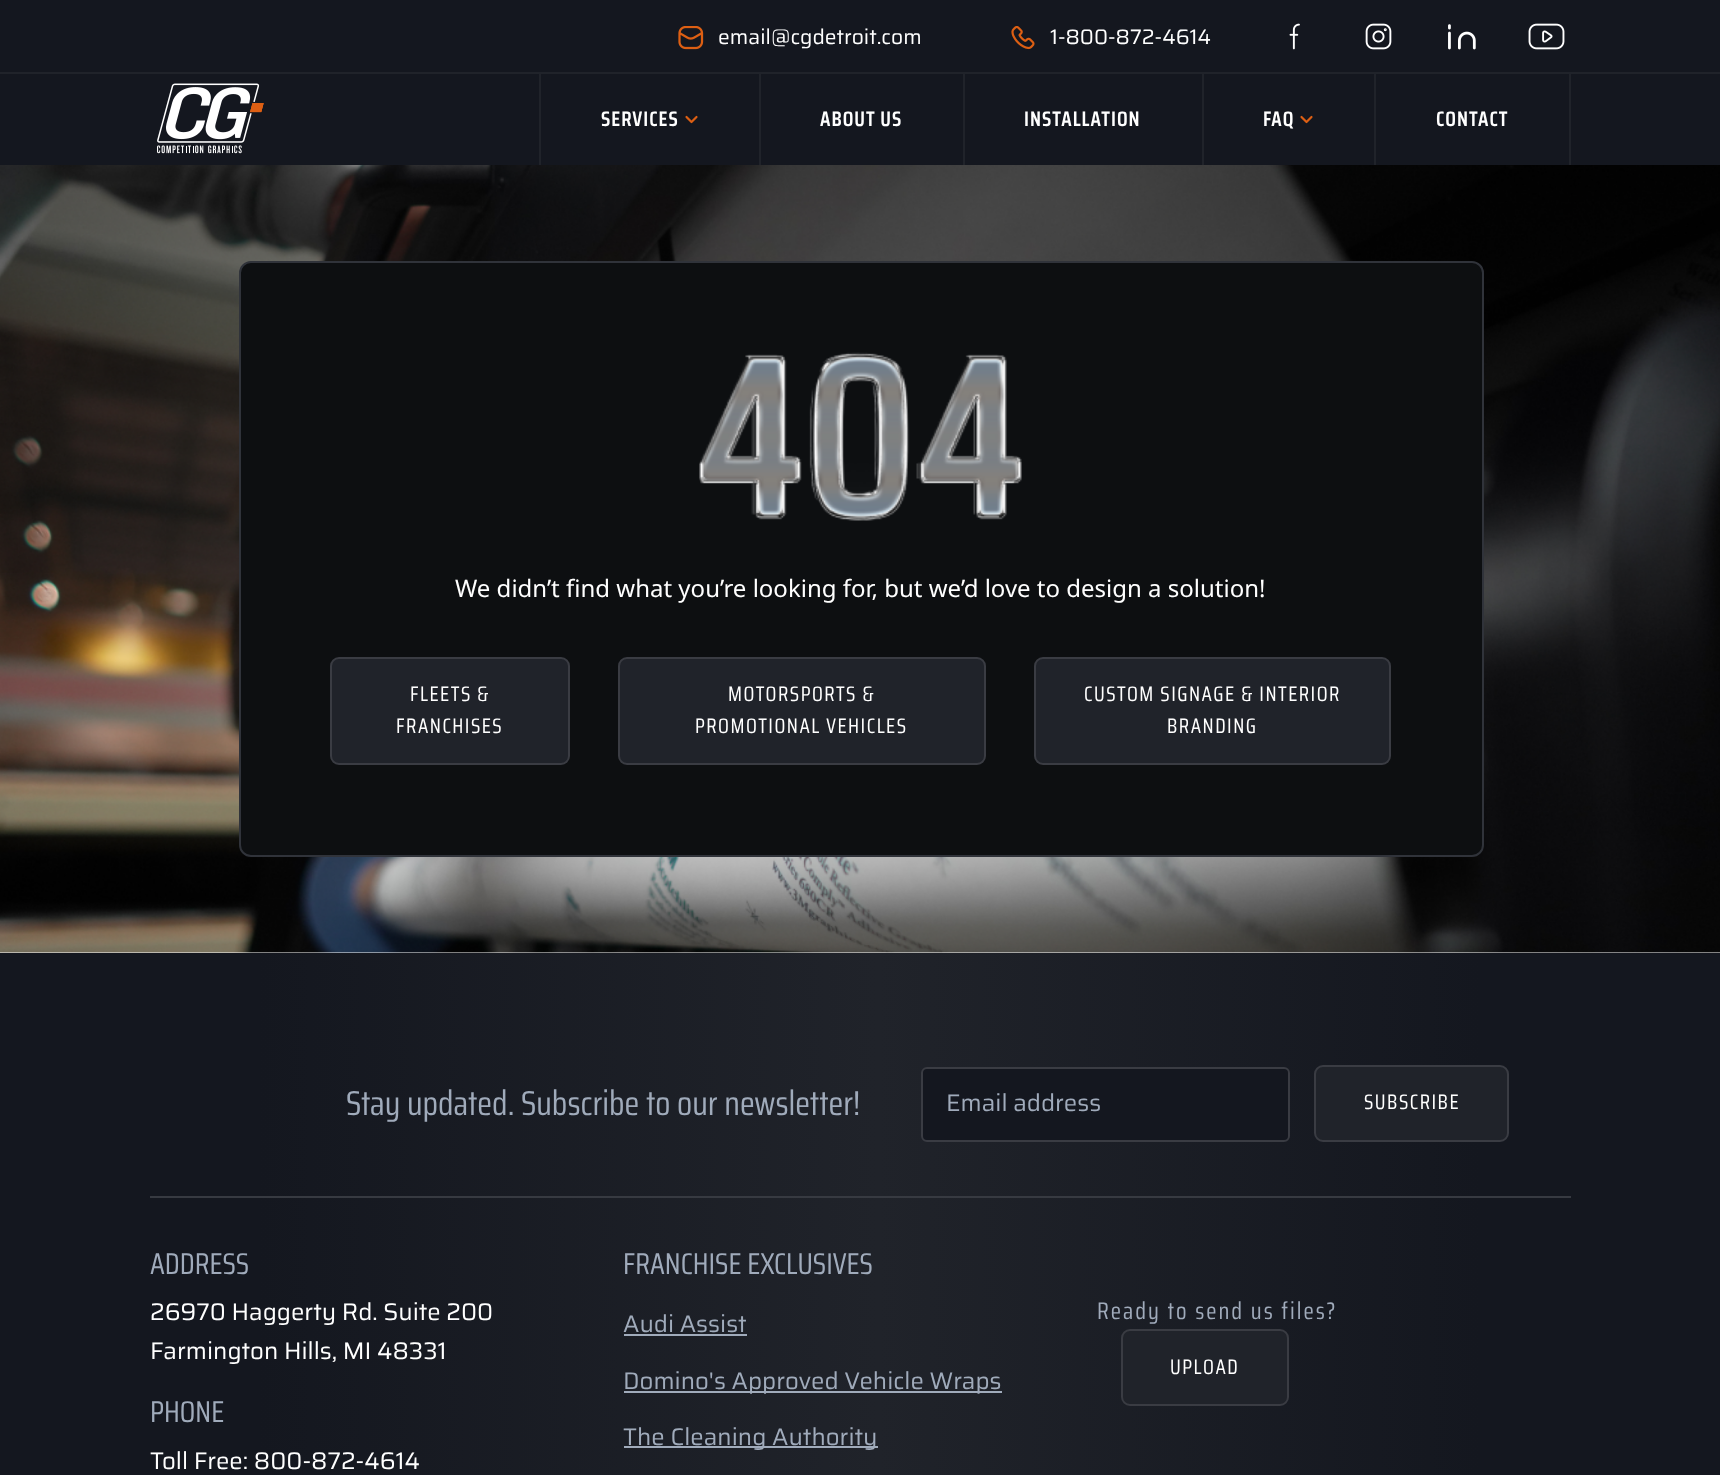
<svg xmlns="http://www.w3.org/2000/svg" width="1720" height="1475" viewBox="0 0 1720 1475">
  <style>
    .t1 { font: 21px Saira; fill: #fff; }
    .t2 { font: 600 21px Saira Condensed; letter-spacing: 1px; fill: #fff; }
    .t3 { font: 24px Noto Sans; fill: #fff; }
    .t4 { font: 21px Saira Condensed; letter-spacing: 1.5px; fill: #fff; }
    .t5 { font: 34.5px Saira Condensed; fill: #a0abbb; }
    .t6 { font: 24px Saira; fill: #a0abbb; }
    .t7 { font: 30px Saira Condensed; fill: #a0abbb; }
    .t8 { font: 24px Saira; fill: #fff; }
    .t9 { font: 24px Saira Condensed; letter-spacing: 2px; fill: #a0abbb; }
  </style>
  <defs>
    <linearGradient id="g1" gradientUnits="userSpaceOnUse" x1="0" y1="1437" x2="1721" y2="1437"><stop offset="0.15" stop-color="#14171f"/><stop offset="0.51" stop-color="#20232a"/><stop offset="0.86" stop-color="#14171f"/></linearGradient>
  </defs>
  <rect width="100%" height="100%" fill="#fff"/>
  <rect x="0" y="0" width="1720" height="165" fill="#14171f"/>
  <rect x="0" y="72" width="1720" height="2" fill="#20232a"/>
  <image x="678" y="26" width="26" height="24" href="images/1.png"/>
  <text x="718" y="44" class="t1">email@cgdetroit.com</text>
  <image x="1011" y="26" width="24" height="24" href="images/2.png"/>
  <text x="1050" y="44" class="t1">1-800-872-4614</text>
  <image x="1289" y="23" width="11" height="27" href="images/3.png"/>
  <image x="1365" y="23" width="27" height="27" href="images/4.png"/>
  <image x="1448" y="24" width="28" height="26" href="images/5.png"/>
  <image x="1528" y="23" width="37" height="27" href="images/6.png"/>
  <image x="157" y="83" width="107" height="71" href="images/7.png"/>
  <rect x="539" y="74" width="2" height="91" fill="#20232a"/>
  <rect x="759" y="74" width="2" height="91" fill="#20232a"/>
  <text x="601" y="126" class="t2">SERVICES</text>
  <path d="M686.5 117L691.5 122L696.5 117" fill="none" stroke="#dd5f13" stroke-width="2.2" stroke-linecap="round" stroke-linejoin="round"/>
  <rect x="963" y="74" width="2" height="91" fill="#20232a"/>
  <text x="820" y="126" class="t2">ABOUT US</text>
  <rect x="1202" y="74" width="2" height="91" fill="#20232a"/>
  <text x="1024" y="126" class="t2">INSTALLATION</text>
  <rect x="1374" y="74" width="2" height="91" fill="#20232a"/>
  <text x="1263" y="126" class="t2">FAQ</text>
  <path d="M1301.5 117L1306.5 122L1311.5 117" fill="none" stroke="#dd5f13" stroke-width="2.2" stroke-linecap="round" stroke-linejoin="round"/>
  <rect x="1569" y="74" width="2" height="91" fill="#20232a"/>
  <text x="1436" y="126" class="t2">CONTACT</text>
  <image x="0" y="165" width="1720" height="788" href="images/8.png"/>
  <rect x="240" y="262" width="1243" height="594" rx="11" fill="#0d0f11" stroke="#30333a" stroke-width="2"/>
  <image x="699" y="352" width="323" height="169" href="images/9.png"/>
  <text x="455" y="597" class="t3">We didn’t find what you’re looking for, but we’d love to design a solution!</text>
  <rect x="331" y="658" width="238" height="106" rx="8" fill="#20232a" stroke="#3a3c43" stroke-width="2"/>
  <text x="410" y="701" class="t4">FLEETS &amp;</text>
  <text x="396" y="733" class="t4">FRANCHISES</text>
  <rect x="619" y="658" width="366" height="106" rx="8" fill="#20232a" stroke="#3a3c43" stroke-width="2"/>
  <text x="728" y="701" class="t4">MOTORSPORTS &amp;</text>
  <text x="695" y="733" class="t4">PROMOTIONAL VEHICLES</text>
  <rect x="1035" y="658" width="355" height="106" rx="8" fill="#20232a" stroke="#3a3c43" stroke-width="2"/>
  <text x="1084" y="701" class="t4">CUSTOM SIGNAGE &amp; INTERIOR</text>
  <text x="1167" y="733" class="t4">BRANDING</text>
  <rect x="0" y="953" width="1720" height="522" fill="url(#g1)"/>
  <text x="346" y="1115" class="t5">Stay updated. Subscribe to our newsletter!</text>
  <rect x="922" y="1068" width="367" height="73" rx="5" fill="#14171f" stroke="#3a3c43" stroke-width="2"/>
  <text x="946" y="1111" class="t6">Email address</text>
  <rect x="1315" y="1066" width="193" height="75" rx="8" fill="#20232a" stroke="#3a3c43" stroke-width="2"/>
  <text x="1364" y="1109" class="t4">SUBSCRIBE</text>
  <rect x="150" y="1196" width="1421" height="2" fill="#373a41"/>
  <text x="150" y="1274" class="t7">ADDRESS</text>
  <text x="150" y="1320" class="t8">26970 Haggerty Rd. Suite 200</text>
  <text x="150" y="1359" class="t8">Farmington Hills, MI 48331</text>
  <text x="150" y="1422" class="t7">PHONE</text>
  <text x="150" y="1469" class="t8">Toll Free: 800-872-4614</text>
  <text x="623" y="1274" class="t7">FRANCHISE EXCLUSIVES</text>
  <text x="623" y="1332" class="t6">Audi Assist</text>
  <rect x="624" y="1334" width="123" height="2" fill="#a0abbb"/>
  <rect x="624" y="1391" width="378" height="2" fill="#a0abbb"/>
  <text x="623" y="1389" class="t6">Domino's Approved Vehicle Wraps</text>
  <rect x="624" y="1446" width="254" height="2" fill="#a0abbb"/>
  <text x="623" y="1445" class="t6">The Cleaning Authority</text>
  <text x="1097" y="1319" class="t9">Ready to send us files?</text>
  <rect x="1122" y="1330" width="166" height="75" rx="8" fill="#20232a" stroke="#3a3c43" stroke-width="2"/>
  <text x="1170" y="1374" class="t4">UPLOAD</text>
</svg>
